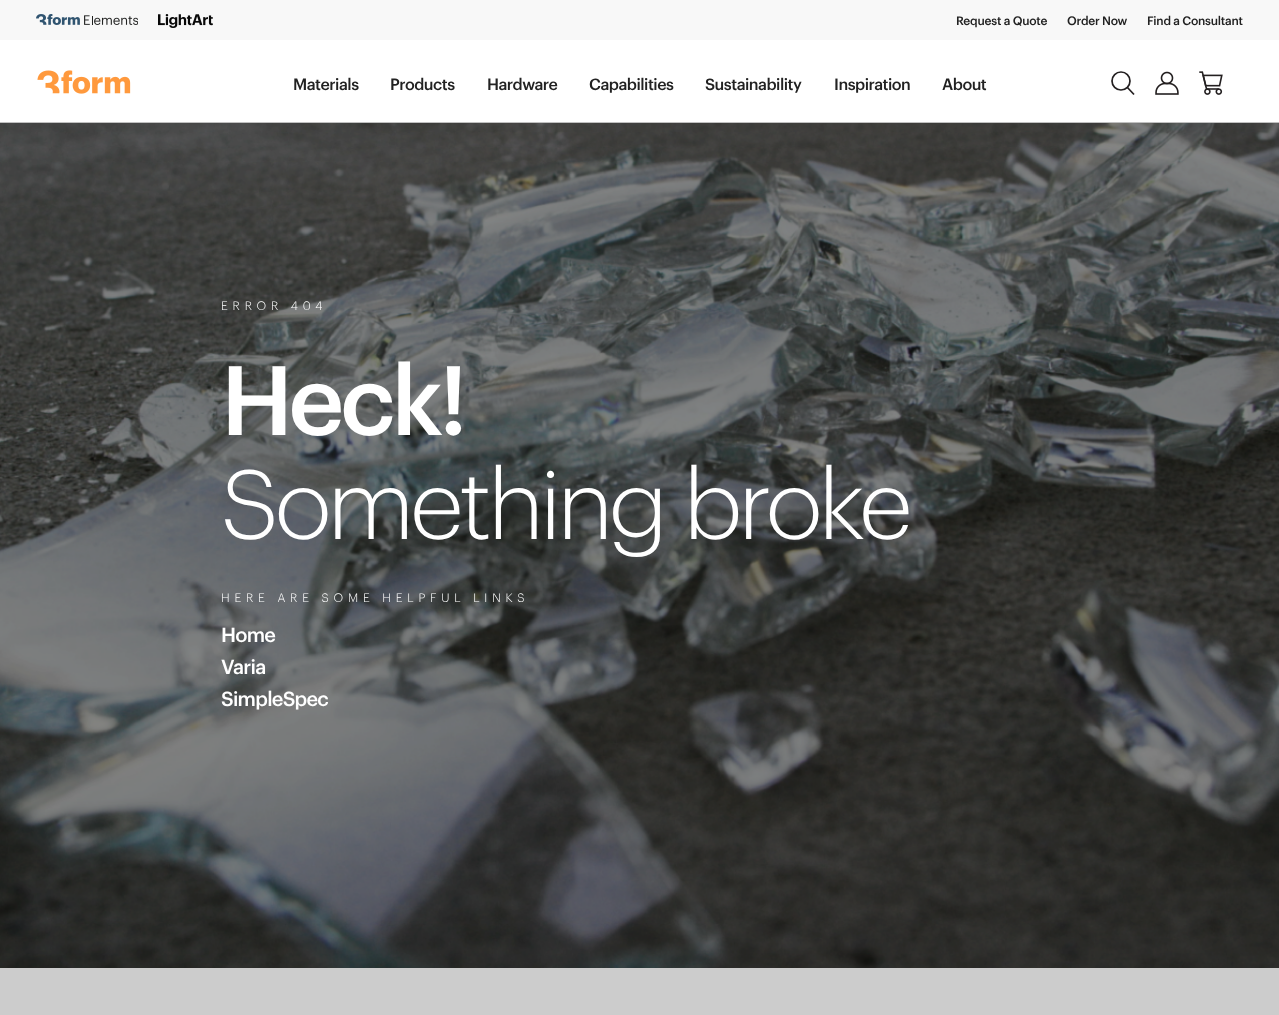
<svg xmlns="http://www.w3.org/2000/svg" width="1279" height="1015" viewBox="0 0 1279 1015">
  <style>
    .t1 { font: 500 12px '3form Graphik'; letter-spacing: -0.25px; fill: #222; }
    .t2 { font: 500 16px '3form Graphik'; letter-spacing: -0.5px; fill: #222; }
    .t3 { font: 300 12px '3form Graphik'; letter-spacing: 4.8px; fill: #fff; }
    .t4 { font: 500 96px '3form Graphik'; letter-spacing: -4px; fill: #fff; }
    .t5 { font: 300 96px '3form Graphik'; letter-spacing: -4px; fill: #fff; }
    .t6 { font: 500 20px '3form Graphik'; letter-spacing: -0.75px; fill: #fff; }
  </style>
  <rect width="100%" height="100%" fill="#ccc"/>
  <rect x="0" y="40" width="1279" height="82" fill="#fff"/>
  <rect x="0" y="0" width="1279" height="40" fill="#f8f8f8"/>
  <image x="36" y="14" width="102" height="11" href="images/1.png"/>
  <image x="158" y="14" width="55" height="14" href="images/2.png"/>
  <text x="956" y="25" class="t1">Request a Quote</text>
  <text x="1067" y="25" class="t1">Order Now</text>
  <text x="1147" y="25" class="t1">Find a Consultant</text>
  <rect x="0" y="122" width="1279" height="1" fill="#c0c0c0"/>
  <image x="37" y="70" width="94" height="24" href="images/3.png"/>
  <text x="293" y="90" class="t2">Materials</text>
  <text x="390" y="90" class="t2">Products</text>
  <text x="487" y="90" class="t2">Hardware</text>
  <text x="589" y="90" class="t2">Capabilities</text>
  <text x="705" y="90" class="t2">Sustainability</text>
  <text x="834" y="90" class="t2">Inspiration</text>
  <text x="942" y="90" class="t2">About</text>
  <circle cx="1121" cy="81" r="9" fill="none" stroke="#231f20" stroke-width="1.7"/>
  <path d="M1134 94.5L1127 87" fill="none" stroke="#231f20" stroke-width="1.7"/>
  <image x="1155" y="71" width="24" height="24" href="images/4.png"/>
  <image x="1199" y="71" width="24" height="24" href="images/5.png"/>
  <image x="0" y="123" width="1279" height="845" href="images/6.png"/>
  <text x="221" y="310" class="t3">ERROR 404</text>
  <text x="221" y="435" class="t4">Heck!</text>
  <text x="221" y="539" class="t5">Something broke</text>
  <text x="221" y="602" class="t3">HERE ARE SOME HELPFUL LINKS</text>
  <text x="221" y="642" class="t6">Home</text>
  <text x="221" y="674" class="t6">Varia</text>
  <text x="221" y="706" class="t6">SimpleSpec</text>
</svg>
